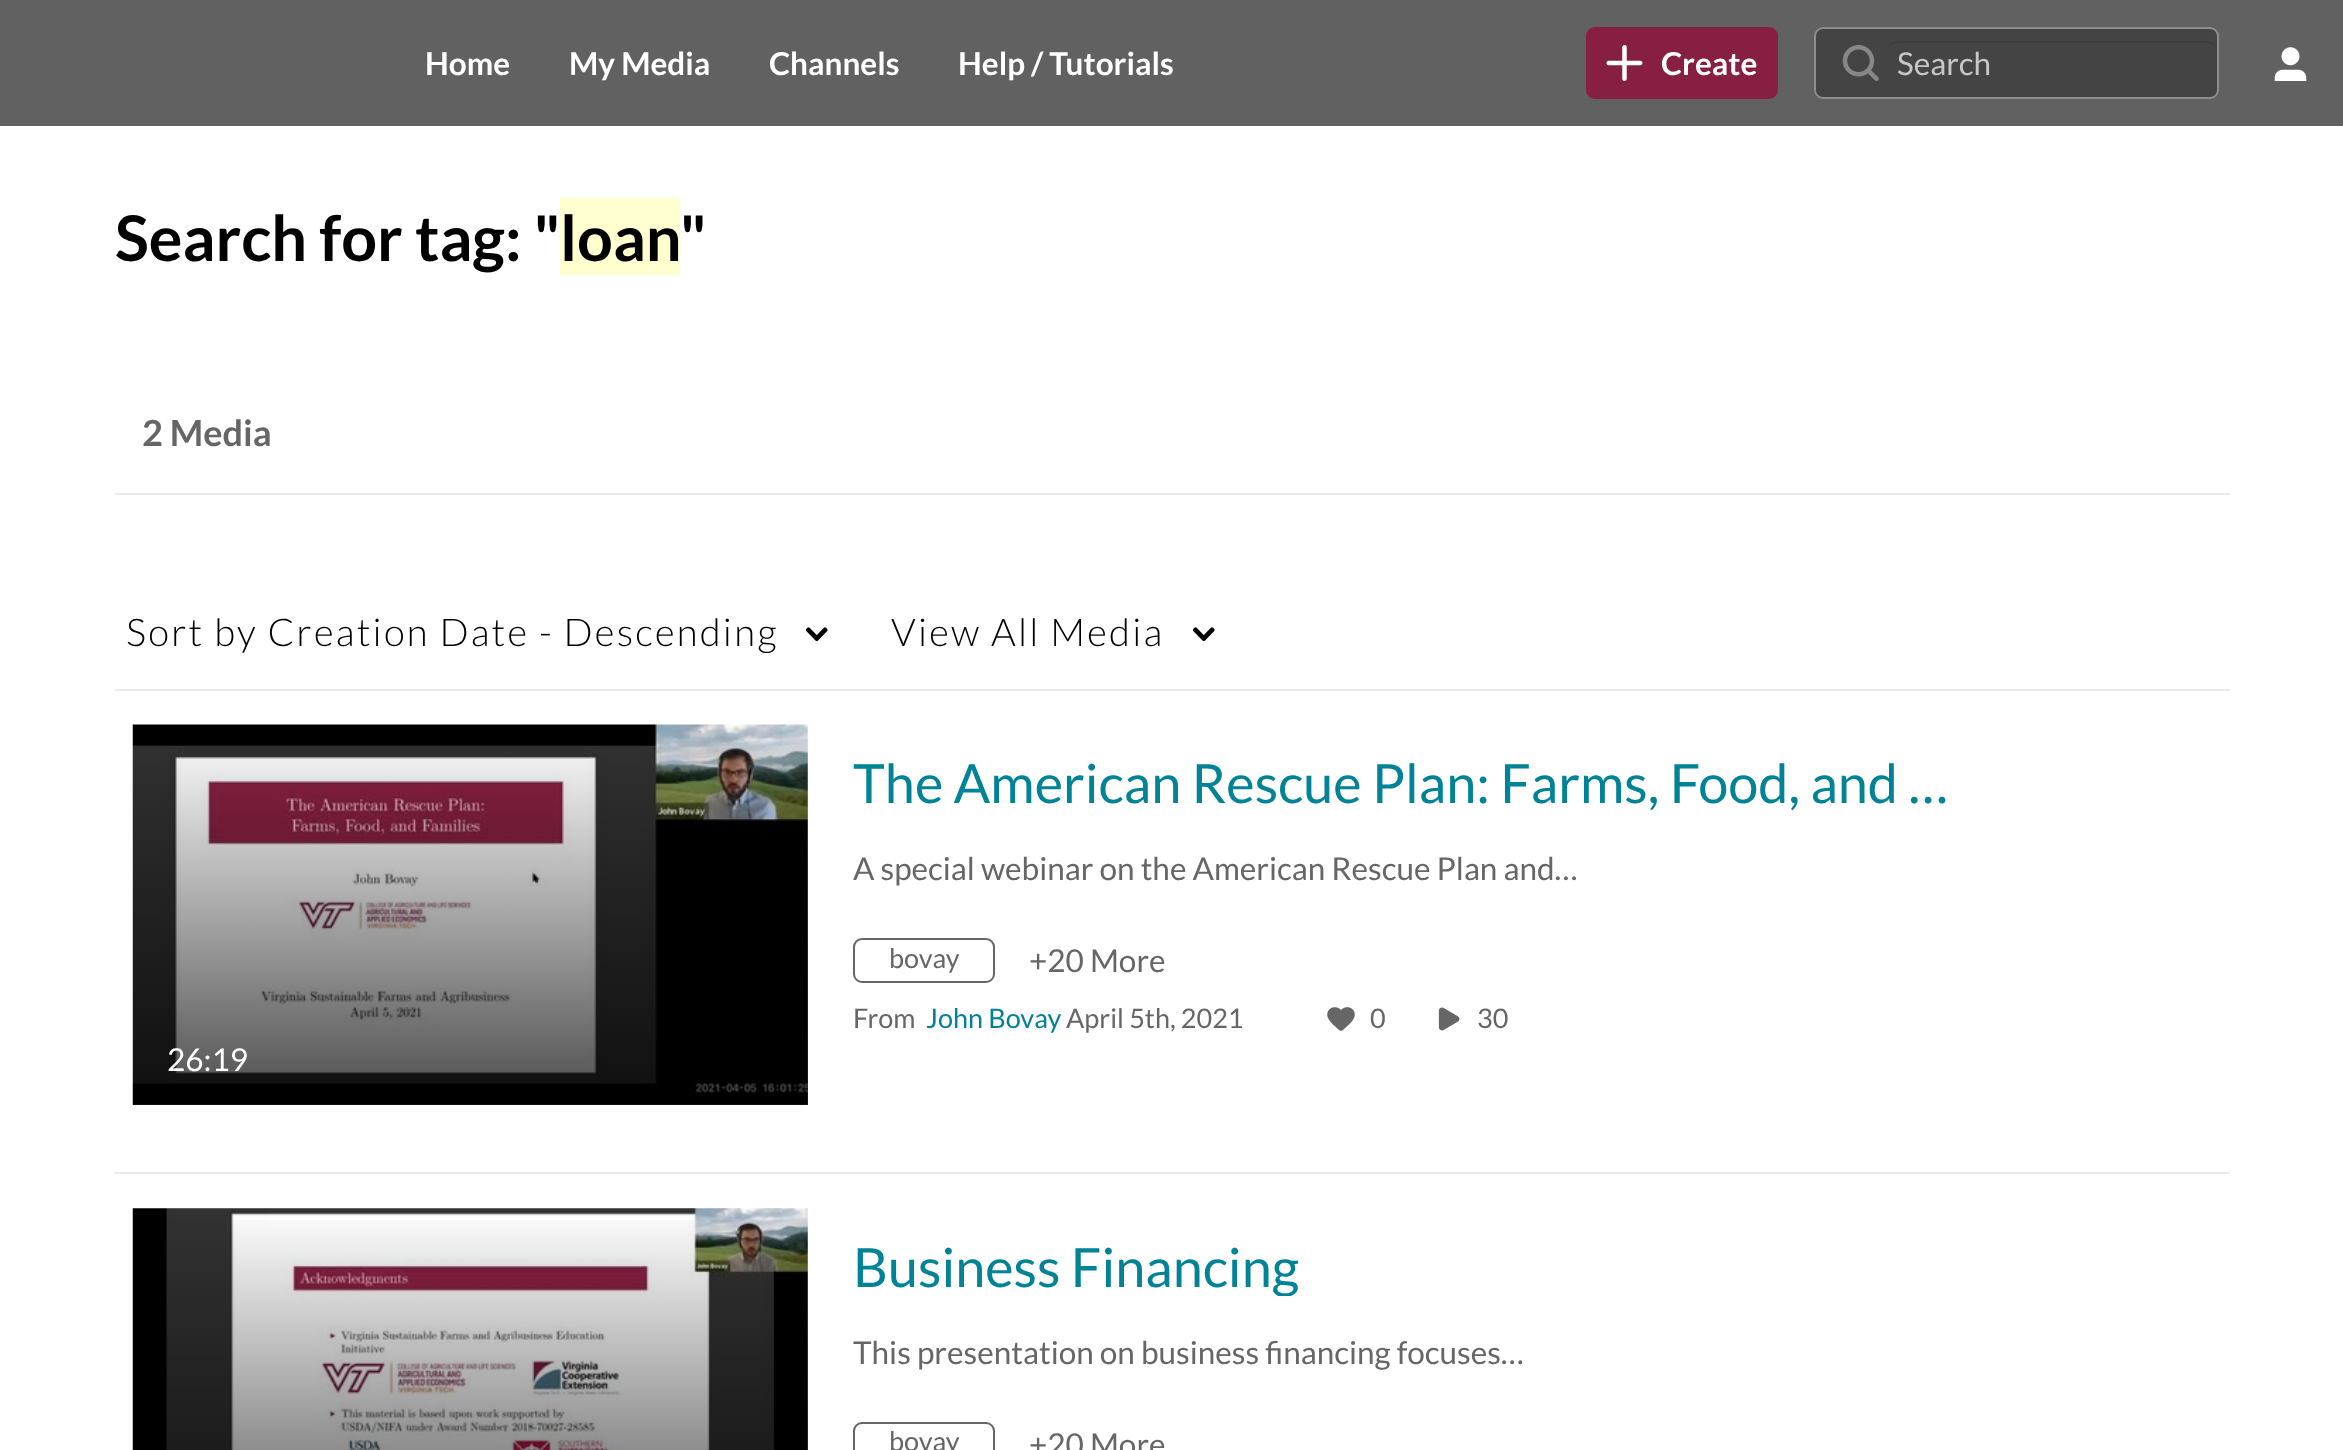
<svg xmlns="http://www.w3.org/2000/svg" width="2343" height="1450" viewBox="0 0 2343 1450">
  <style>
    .t1 { font: bold 31.5px Lato; fill: #fff; }
    .t2 { font: 31.5px Lato; fill: #c7c7c7; }
    .t3 { font: bold 63px Lato; fill: #000; }
    .t4 { font: bold 36px Lato; fill: #666; }
    .t5 { font: 300 38.25px Lato; letter-spacing: 2.25px; fill: #000; }
    .t6 { font: 54px Lato; fill: #008297; }
    .t7 { font: 31.5px Lato; fill: #666; }
    .t8 { font: 27px Lato; fill: #666; }
    .t9 { font: 27px Lato; fill: #008297; }
    .t10 { font: 31.5px Lato; fill: #fff; }
  </style>
  <defs>
    <clipPath id="clip1"><rect x="770" y="45" width="130" height="38"/></clipPath>
    <linearGradient id="g1" gradientUnits="userSpaceOnUse" x1="470" y1="725" x2="470" y2="1105"><stop offset="0" stop-color="#000" stop-opacity="0"/><stop offset="1" stop-color="#000" stop-opacity="0.7"/></linearGradient>
    <linearGradient id="g2" gradientUnits="userSpaceOnUse" x1="470" y1="1208" x2="470" y2="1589"><stop offset="0" stop-color="#000" stop-opacity="0"/><stop offset="1" stop-color="#000" stop-opacity="0.7"/></linearGradient>
    <clipPath id="clip2"><rect x="853" y="1235" width="445" height="61"/></clipPath>
  </defs>
  <rect width="100%" height="100%" fill="#fff"/>
  <rect x="0" y="0" width="2343" height="126" fill="#616161"/>
  <text x="425" y="75" class="t1">Home</text>
  <text x="569" y="75" class="t1">My Media</text>
  <g clip-path="url(#clip1)">
    <text x="769" y="75" class="t1">Channels</text>
  </g>
  <text x="958" y="75" class="t1">Help / Tutorials</text>
  <rect x="1586" y="27" width="192" height="72" rx="9" fill="#861f41"/>
  <image x="1606" y="45" width="37" height="36" href="images/1.png"/>
  <text x="1661" y="75" class="t1">Create</text>
  <rect x="1814" y="27" width="405" height="72" rx="9" fill="#444"/>
  <rect x="1815" y="28" width="403" height="70" rx="8" fill="none" stroke="#ffffff66" stroke-width="2"/>
  <image x="1842" y="45" width="37" height="36" href="images/2.png"/>
  <path d="M1897 43H2207C2212 43 2216 47 2216 52C2216 46 2213 41 2207 41H1895C1890 42 1888 47 1888 52C1888 47 1892 43 1897 43Z" fill="#3f3f3f"/>
  <text x="1897" y="75" class="t2">Search</text>
  <image x="2274" y="47" width="33" height="34" href="images/3.png"/>
  <text x="115" y="261" class="t3">Search for tag: "</text>
  <rect x="560" y="198" width="120" height="77" fill="#ffffcf"/>
  <text x="560" y="261" class="t3">loan</text>
  <text x="680" y="261" class="t3">"</text>
  <rect x="115" y="493" width="2115" height="2" fill="#ebebeb"/>
  <text x="142" y="446" class="t4">2 Media</text>
  <text x="126" y="646" class="t5">Sort by Creation Date - Descending</text>
  <image x="806" y="627" width="22" height="15" href="images/4.png"/>
  <text x="891" y="646" class="t5">View All Media</text>
  <image x="1193" y="627" width="22" height="15" href="images/4.png"/>
  <rect x="115" y="689" width="2115" height="2" fill="#ebebeb"/>
  <text x="853" y="803" class="t6">The American Rescue Plan: Farms, Food, and …</text>
  <text x="853" y="880" class="t7">A special webinar on the American Rescue Plan and…</text>
  <rect x="854" y="939" width="140" height="43" rx="8" fill="none" stroke="#666" stroke-width="2"/>
  <text x="889" y="968" class="t8">bovay</text>
  <text x="1029" y="972" class="t7">+20 More</text>
  <text x="853" y="1028" class="t8">From</text>
  <text x="926" y="1028" class="t9">John Bovay</text>
  <text x="1066" y="1028" class="t8">April 5th, 2021</text>
  <image x="1327" y="1007" width="28" height="24" href="images/5.png"/>
  <text x="1370" y="1028" class="t8">0</text>
  <image x="1438" y="1007" width="22" height="24" href="images/6.png"/>
  <text x="1477" y="1028" class="t8">30</text>
  <image x="132" y="724" width="676" height="381" href="images/7.png"/>
  <rect x="133" y="737" width="675" height="368" fill="url(#g1)"/>
  <text x="167" y="1071" class="t10">26:19</text>
  <image x="132" y="1208" width="676" height="242" href="images/8.png"/>
  <rect x="166" y="1220" width="642" height="230" fill="url(#g2)"/>
  <rect x="115" y="1172" width="2115" height="2" fill="#ebebeb"/>
  <g clip-path="url(#clip2)">
    <text x="853" y="1287" class="t6">Business Financing</text>
  </g>
  <text x="853" y="1364" class="t7">This presentation on business financing focuses…</text>
  <rect x="854" y="1423" width="140" height="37" rx="8" fill="none" stroke="#666" stroke-width="2"/>
  <text x="889" y="1451" class="t8">bovay</text>
  <text x="1029" y="1456" class="t7">+20 More</text>
</svg>
